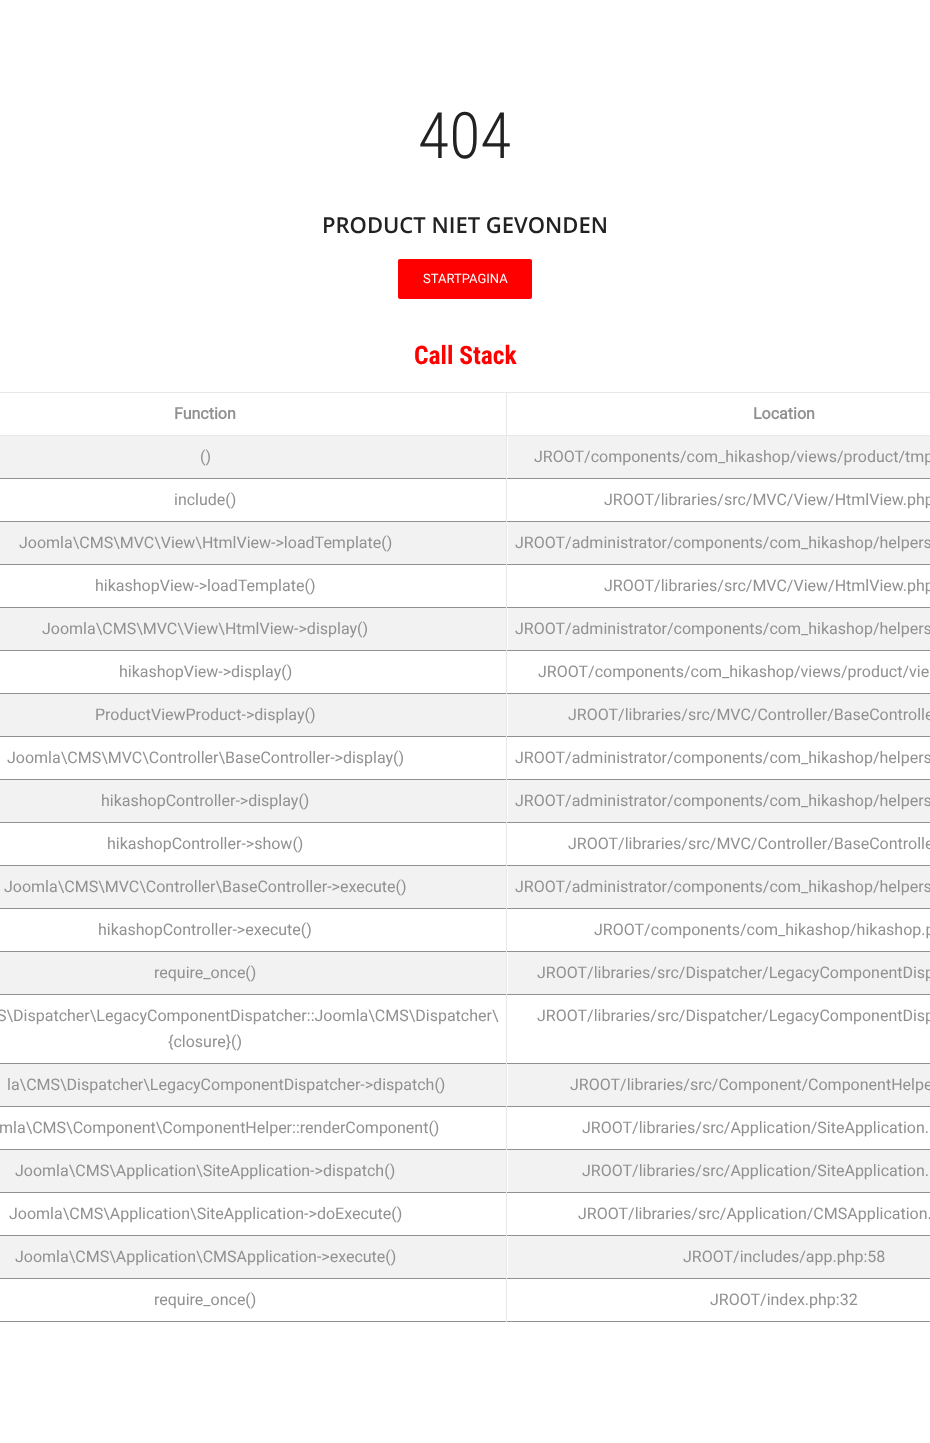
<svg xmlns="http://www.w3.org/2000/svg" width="930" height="1443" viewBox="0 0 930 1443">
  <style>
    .t1 { font: 300 64px Roboto Condensed; fill: #222; }
    .t2 { font: 600 22px Open Sans; fill: #222; }
    .t3 { font: 13px Roboto; fill: #fff; }
    .t4 { font: bold 25.5px Roboto Condensed; fill: #f00; }
    .t5 { font: bold 16px Roboto; fill: #919191; }
    .t6 { font: 16px Roboto; fill: #919191; }
  </style>
  <rect width="100%" height="100%" fill="#fff"/>
  <text x="418" y="158" class="t1">404</text>
  <text x="322" y="233" class="t2">PRODUCT NIET GEVONDEN</text>
  <rect x="398" y="259" width="134" height="40" rx="2" fill="#f00"/>
  <text x="423" y="283" class="t3">STARTPAGINA</text>
  <text x="414" y="364" class="t4">Call Stack</text>
  <rect x="0" y="392" width="930" height="1" fill="#e8e8e8"/>
  <text x="174" y="419" class="t5">Function</text>
  <text x="753" y="419" class="t5">Location</text>
  <rect x="0" y="435" width="930" height="1" fill="#e8e8e8"/>
  <rect x="0" y="478" width="930" height="1" fill="#919191"/>
  <rect x="0" y="436" width="506" height="42" fill="#f2f2f2"/>
  <text x="200" y="462" class="t6">()</text>
  <rect x="508" y="436" width="422" height="42" fill="#f2f2f2"/>
  <text x="534" y="462" class="t6">JROOT/components/com_hikashop/views/product/tmp</text>
  <rect x="0" y="521" width="930" height="1" fill="#919191"/>
  <text x="174" y="505" class="t6">include()</text>
  <text x="604" y="505" class="t6">JROOT/libraries/src/MVC/View/HtmlView.php</text>
  <rect x="0" y="564" width="930" height="1" fill="#919191"/>
  <rect x="0" y="522" width="506" height="42" fill="#f2f2f2"/>
  <text x="19" y="548" class="t6">Joomla\CMS\MVC\View\HtmlView-&gt;loadTemplate()</text>
  <rect x="508" y="522" width="422" height="42" fill="#f2f2f2"/>
  <text x="515" y="548" class="t6">JROOT/administrator/components/com_hikashop/helpers</text>
  <rect x="0" y="607" width="930" height="1" fill="#919191"/>
  <text x="95" y="591" class="t6">hikashopView-&gt;loadTemplate()</text>
  <text x="604" y="591" class="t6">JROOT/libraries/src/MVC/View/HtmlView.php</text>
  <rect x="0" y="650" width="930" height="1" fill="#919191"/>
  <rect x="0" y="608" width="506" height="42" fill="#f2f2f2"/>
  <text x="42" y="634" class="t6">Joomla\CMS\MVC\View\HtmlView-&gt;display()</text>
  <rect x="508" y="608" width="422" height="42" fill="#f2f2f2"/>
  <text x="515" y="634" class="t6">JROOT/administrator/components/com_hikashop/helpers</text>
  <rect x="0" y="693" width="930" height="1" fill="#919191"/>
  <text x="119" y="677" class="t6">hikashopView-&gt;display()</text>
  <text x="538" y="677" class="t6">JROOT/components/com_hikashop/views/product/vie</text>
  <rect x="0" y="736" width="930" height="1" fill="#919191"/>
  <rect x="0" y="694" width="506" height="42" fill="#f2f2f2"/>
  <text x="95" y="720" class="t6">ProductViewProduct-&gt;display()</text>
  <rect x="508" y="694" width="422" height="42" fill="#f2f2f2"/>
  <text x="568" y="720" class="t6">JROOT/libraries/src/MVC/Controller/BaseControlle</text>
  <rect x="0" y="779" width="930" height="1" fill="#919191"/>
  <text x="7" y="763" class="t6">Joomla\CMS\MVC\Controller\BaseController-&gt;display()</text>
  <text x="515" y="763" class="t6">JROOT/administrator/components/com_hikashop/helpers</text>
  <rect x="0" y="822" width="930" height="1" fill="#919191"/>
  <rect x="0" y="780" width="506" height="42" fill="#f2f2f2"/>
  <text x="101" y="806" class="t6">hikashopController-&gt;display()</text>
  <rect x="508" y="780" width="422" height="42" fill="#f2f2f2"/>
  <text x="515" y="806" class="t6">JROOT/administrator/components/com_hikashop/helpers</text>
  <rect x="0" y="865" width="930" height="1" fill="#919191"/>
  <text x="107" y="849" class="t6">hikashopController-&gt;show()</text>
  <text x="568" y="849" class="t6">JROOT/libraries/src/MVC/Controller/BaseControlle</text>
  <rect x="0" y="908" width="930" height="1" fill="#919191"/>
  <rect x="0" y="866" width="506" height="42" fill="#f2f2f2"/>
  <text x="4" y="892" class="t6">Joomla\CMS\MVC\Controller\BaseController-&gt;execute()</text>
  <rect x="508" y="866" width="422" height="42" fill="#f2f2f2"/>
  <text x="515" y="892" class="t6">JROOT/administrator/components/com_hikashop/helpers</text>
  <rect x="0" y="951" width="930" height="1" fill="#919191"/>
  <text x="98" y="935" class="t6">hikashopController-&gt;execute()</text>
  <text x="594" y="935" class="t6">JROOT/components/com_hikashop/hikashop.p</text>
  <rect x="0" y="994" width="930" height="1" fill="#919191"/>
  <rect x="0" y="952" width="506" height="42" fill="#f2f2f2"/>
  <text x="154" y="978" class="t6">require_once()</text>
  <rect x="508" y="952" width="422" height="42" fill="#f2f2f2"/>
  <text x="537" y="978" class="t6">JROOT/libraries/src/Dispatcher/LegacyComponentDisp</text>
  <rect x="0" y="1063" width="930" height="1" fill="#919191"/>
  <text x="-3" y="1021" class="t6">S\Dispatcher\LegacyComponentDispatcher::Joomla\CMS\Dispatcher\</text>
  <text x="168" y="1047" class="t6">{closure}()</text>
  <text x="537" y="1021" class="t6">JROOT/libraries/src/Dispatcher/LegacyComponentDisp</text>
  <rect x="0" y="1106" width="930" height="1" fill="#919191"/>
  <rect x="0" y="1064" width="506" height="42" fill="#f2f2f2"/>
  <text x="7" y="1090" class="t6">la\CMS\Dispatcher\LegacyComponentDispatcher-&gt;dispatch()</text>
  <rect x="508" y="1064" width="422" height="42" fill="#f2f2f2"/>
  <text x="570" y="1090" class="t6">JROOT/libraries/src/Component/ComponentHelpe</text>
  <rect x="0" y="1149" width="930" height="1" fill="#919191"/>
  <text x="-1" y="1133" class="t6">mla\CMS\Component\ComponentHelper::renderComponent()</text>
  <text x="582" y="1133" class="t6">JROOT/libraries/src/Application/SiteApplication.</text>
  <rect x="0" y="1192" width="930" height="1" fill="#919191"/>
  <rect x="0" y="1150" width="506" height="42" fill="#f2f2f2"/>
  <text x="15" y="1176" class="t6">Joomla\CMS\Application\SiteApplication-&gt;dispatch()</text>
  <rect x="508" y="1150" width="422" height="42" fill="#f2f2f2"/>
  <text x="582" y="1176" class="t6">JROOT/libraries/src/Application/SiteApplication.</text>
  <rect x="0" y="1235" width="930" height="1" fill="#919191"/>
  <text x="9" y="1219" class="t6">Joomla\CMS\Application\SiteApplication-&gt;doExecute()</text>
  <text x="578" y="1219" class="t6">JROOT/libraries/src/Application/CMSApplication.</text>
  <rect x="0" y="1278" width="930" height="1" fill="#919191"/>
  <rect x="0" y="1236" width="506" height="42" fill="#f2f2f2"/>
  <text x="15" y="1262" class="t6">Joomla\CMS\Application\CMSApplication-&gt;execute()</text>
  <rect x="508" y="1236" width="422" height="42" fill="#f2f2f2"/>
  <text x="683" y="1262" class="t6">JROOT/includes/app.php:58</text>
  <rect x="0" y="1321" width="930" height="1" fill="#919191"/>
  <text x="154" y="1305" class="t6">require_once()</text>
  <rect x="506" y="392" width="1" height="930" fill="#e8e8e8"/>
  <text x="710" y="1305" class="t6">JROOT/index.php:32</text>
</svg>
